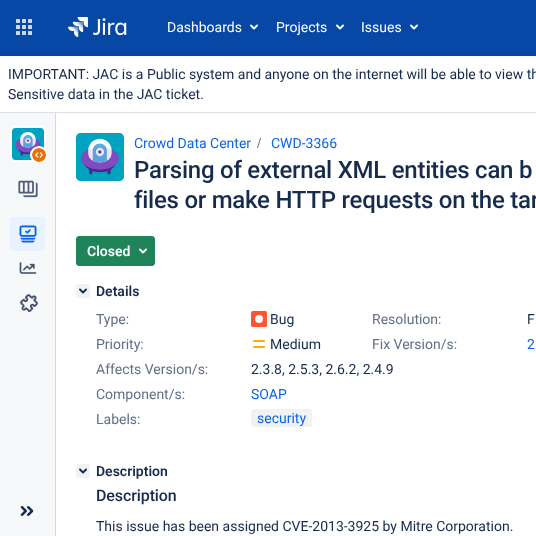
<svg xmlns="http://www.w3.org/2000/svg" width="536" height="536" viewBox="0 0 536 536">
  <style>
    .t1 { font: 14px Roboto; fill: #fff; }
    .t2 { font: 14px Roboto; fill: #172b4d; }
    .t3 { font: 14px Roboto; fill: #0c66e4; }
    .t4 { font: 500 24px Roboto; letter-spacing: -0.25px; fill: #172b4d; }
    .t5 { font: 600 14px Roboto; fill: #fff; }
    .t6 { font: 600 14px Roboto; fill: #172b4d; }
    .t7 { font: 14px Roboto; fill: #626f86; }
    .t8 { font: 500 16px Roboto; letter-spacing: -0.1px; fill: #172b4d; }
  </style>
  <rect width="100%" height="100%" fill="#fff"/>
  <rect x="0" y="0" width="536" height="55" fill="#0747a6"/>
  <rect x="0" y="55" width="536" height="1" fill="#2e3d54"/>
  <image x="16" y="19" width="16" height="16" href="images/1.png"/>
  <image x="68" y="17" width="59" height="20" href="images/2.png"/>
  <text x="167" y="32" class="t1">Dashboards</text>
  <image x="250" y="24" width="8" height="6" href="images/3.png"/>
  <text x="276" y="32" class="t1">Projects</text>
  <image x="336" y="24" width="8" height="6" href="images/3.png"/>
  <text x="361" y="32" class="t1">Issues</text>
  <image x="410" y="24" width="8" height="6" href="images/3.png"/>
  <rect x="0" y="112" width="536" height="1" fill="#dde0e5"/>
  <text x="8" y="79" class="t2">IMPORTANT: JAC is a Public system and anyone on the internet will be able to view th</text>
  <text x="8" y="99" class="t2">Sensitive data in the JAC ticket.</text>
  <rect x="0" y="113" width="55" height="423" fill="#f7f8f9"/>
  <rect x="55" y="113" width="1" height="423" fill="#d6d9df"/>
  <rect x="11" y="127" width="34" height="34" rx="4" fill="none" stroke="#fff" stroke-width="2"/>
  <image x="12" y="128" width="32" height="32" href="images/4.png"/>
  <circle cx="39" cy="155" r="9" fill="#fff"/>
  <image x="32" y="148" width="14" height="14" href="images/5.png"/>
  <image x="18" y="180" width="20" height="18" href="images/6.png"/>
  <rect x="10" y="217" width="35" height="34" rx="3" fill="#e9f2ff"/>
  <image x="19" y="225" width="18" height="18" href="images/7.png"/>
  <image x="19" y="262" width="18" height="12" href="images/8.png"/>
  <image x="20" y="294" width="18" height="18" href="images/9.png"/>
  <image x="20" y="506" width="14" height="10" href="images/10.png"/>
  <image x="76" y="133" width="48" height="48" href="images/11.png"/>
  <text x="134" y="148" class="t3">Crowd Data Center</text>
  <path d="M258 148L261 138H260L257 148Z" fill="#707070"/>
  <text x="271" y="148" class="t3">CWD-3366</text>
  <text x="134" y="178" class="t4">Parsing of external XML entities can b</text>
  <text x="134" y="208" class="t4">files or make HTTP requests on the tar</text>
  <rect x="76.5" y="236.5" width="78" height="29" rx="2.5" fill="#1f845a" stroke="#1f845a"/>
  <text x="87" y="256" class="t5">Closed</text>
  <image x="139" y="248" width="8" height="6" href="images/12.png"/>
  <rect x="76" y="284" width="14" height="14" rx="3" fill="#f0f2f4"/>
  <image x="79" y="288" width="8" height="6" href="images/13.png"/>
  <text x="96" y="296" class="t6">Details</text>
  <text x="96" y="324" class="t7">Type:</text>
  <image x="251" y="311" width="16" height="16" href="images/14.png"/>
  <text x="270" y="324" class="t2">Bug</text>
  <text x="372" y="324" class="t7">Resolution:</text>
  <text x="527" y="324" class="t2">F</text>
  <text x="96" y="349" class="t7">Priority:</text>
  <image x="253" y="340" width="12" height="8" href="images/15.png"/>
  <text x="270" y="349" class="t2">Medium</text>
  <text x="372" y="349" class="t7">Fix Version/s:</text>
  <text x="527" y="349" class="t3">2</text>
  <text x="96" y="374" class="t7">Affects Version/s:</text>
  <text x="251" y="374" class="t2">2.3.8, 2.5.3, 2.6.2, 2.4.9</text>
  <text x="96" y="399" class="t7">Component/s:</text>
  <text x="251" y="399" class="t3">SOAP</text>
  <text x="96" y="424" class="t7">Labels:</text>
  <rect x="251" y="409" width="61" height="18" rx="3" fill="#f0f2f4"/>
  <text x="257" y="423" class="t3">security</text>
  <rect x="76" y="464" width="14" height="14" rx="3" fill="#f0f2f4"/>
  <image x="79" y="468" width="8" height="6" href="images/13.png"/>
  <text x="96" y="476" class="t6">Description</text>
  <text x="96" y="501" class="t8">Description</text>
  <text x="96" y="531" class="t2">This issue has been assigned CVE-2013-3925 by Mitre Corporation.</text>
</svg>
